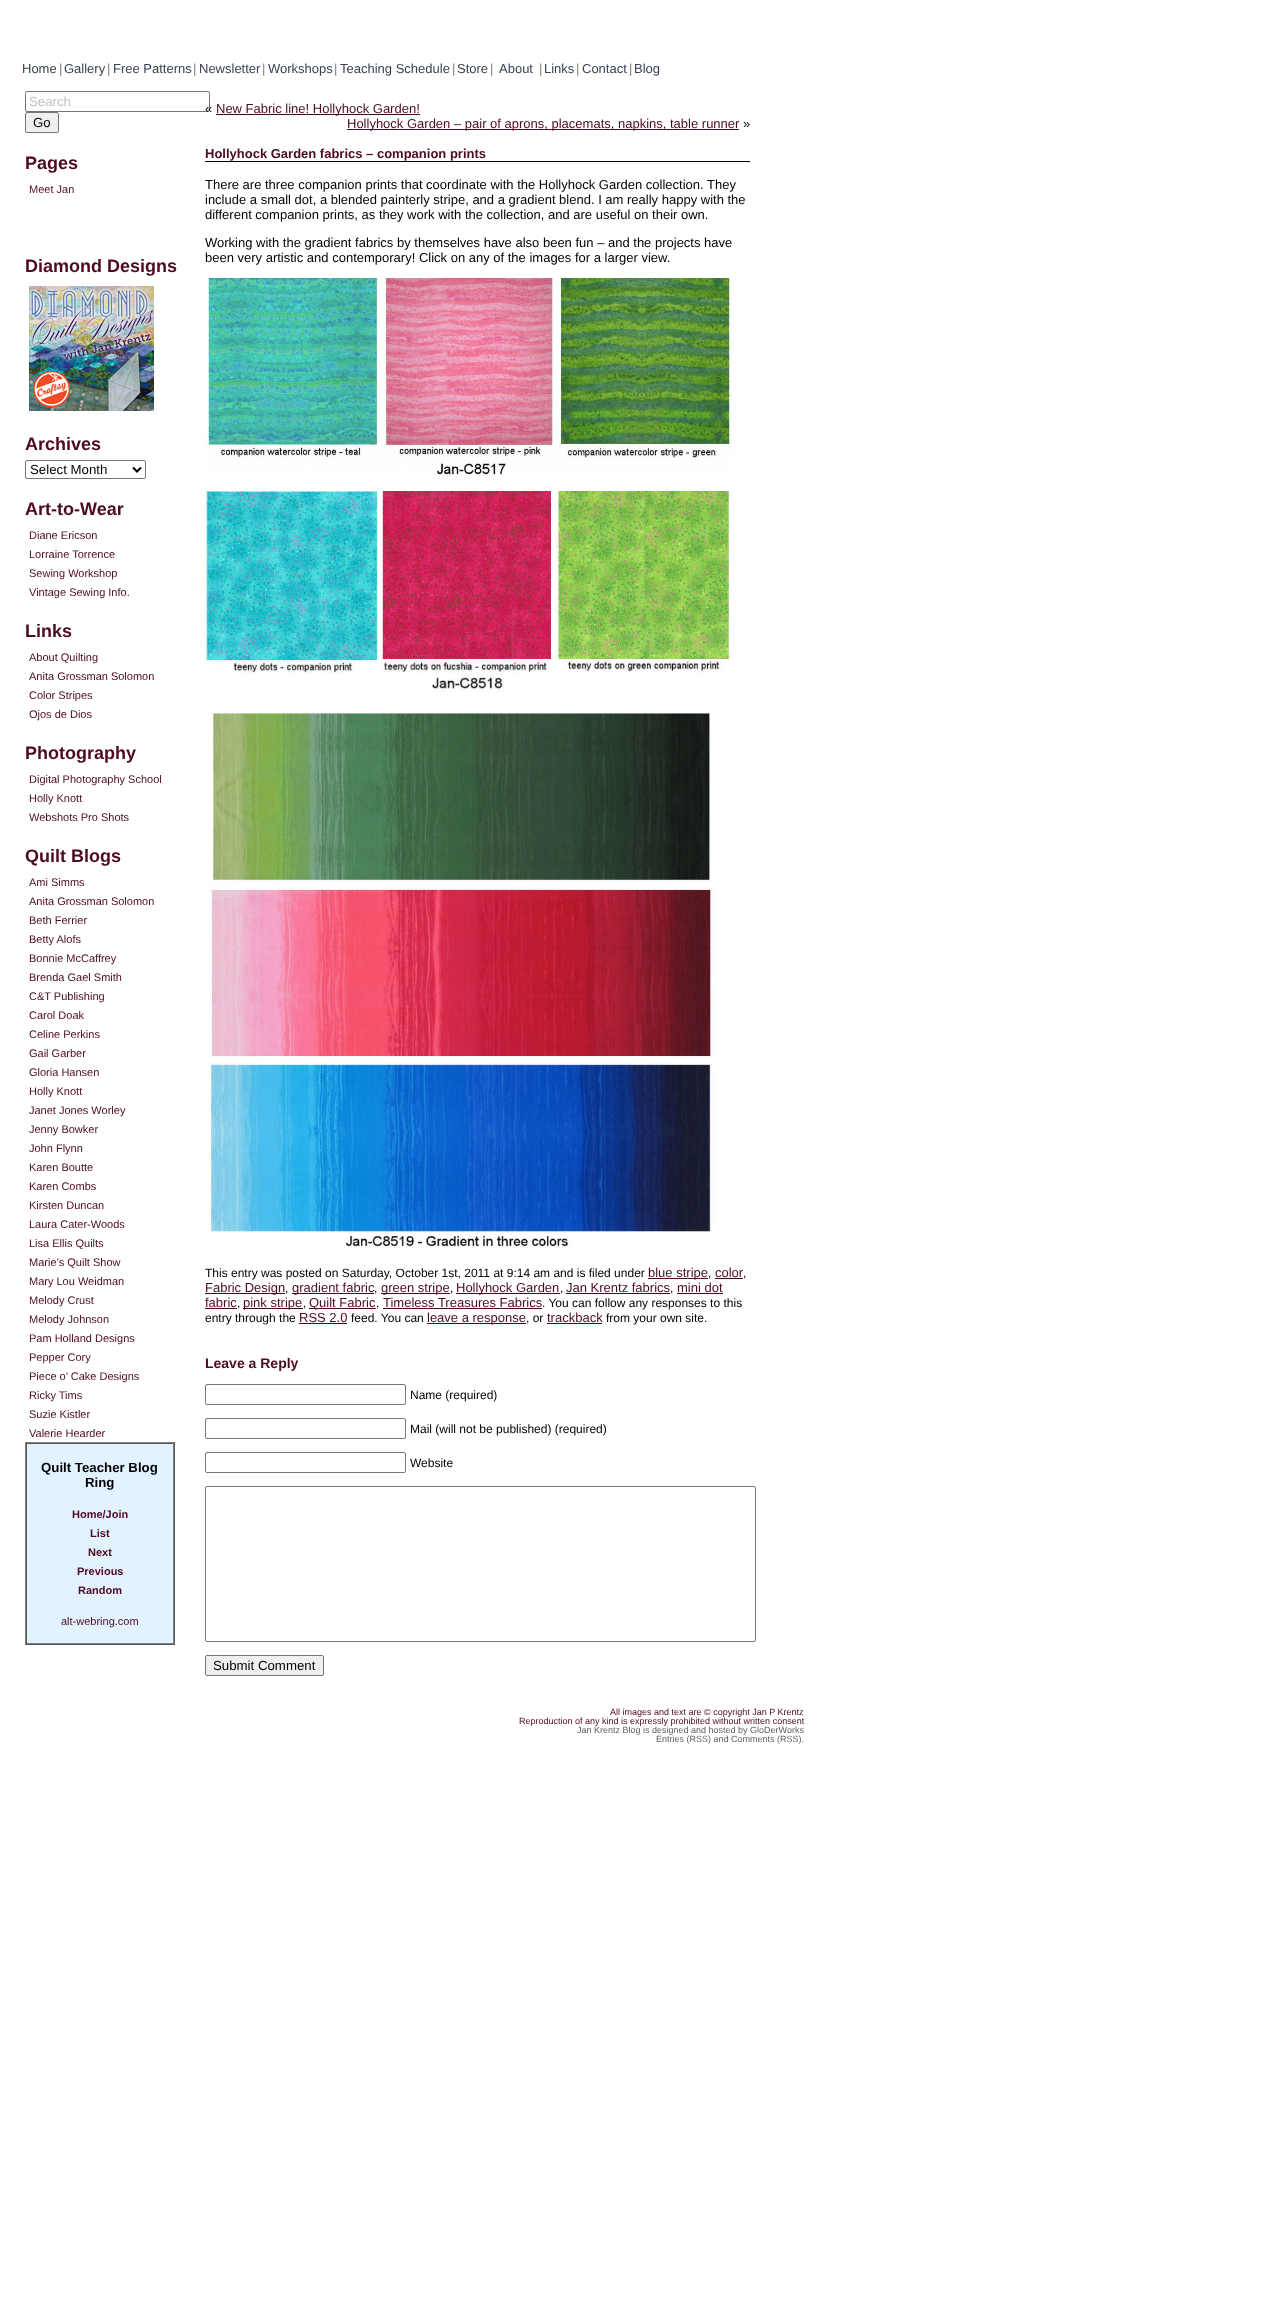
<svg xmlns="http://www.w3.org/2000/svg" width="1273" height="2316" viewBox="0 0 1273 2316">
  <style>
    .t1 { font: 13px Liberation Sans; fill: #364254; }
    .t2 { font: 13px Liberation Sans; fill: #808080; }
    .t3 { font: 13.25px Liberation Sans; fill: #c0c0c0; }
    .t4 { font: 13.25px Liberation Sans; fill: #000; }
    .t5 { font: bold 18px Liberation Sans; fill: #4d0a22; }
    .t6 { font: 11px Liberation Sans; fill: #4d0a22; }
    .t7 { font: bold 13.25px Liberation Sans; fill: #000; }
    .t8 { font: bold 11px Liberation Sans; fill: #4d0a22; }
    .t9 { font: 13px Liberation Sans; fill: #000; }
    .t10 { font: 13px Liberation Sans; fill: #4d0a22; }
    .t11 { font: bold 13px Liberation Sans; fill: #4d0a22; }
    .t12 { font: 12px Liberation Sans; fill: #000; }
    .t13 { font: bold 14px Liberation Sans; fill: #4d0a22; }
    .t14 { font: 9px Liberation Sans; fill: #4d0a22; }
    .t15 { font: 9px Liberation Sans; fill: #616161; }
  </style>
  <rect width="100%" height="100%" fill="#fff"/>
  <text x="22" y="73" class="t1">Home</text>
  <text x="59" y="73" class="t2">|</text>
  <text x="64" y="73" class="t1">Gallery</text>
  <text x="107" y="73" class="t2">|</text>
  <text x="113" y="73" class="t1">Free Patterns</text>
  <text x="193" y="73" class="t2">|</text>
  <text x="199" y="73" class="t1">Newsletter</text>
  <text x="262" y="73" class="t2">|</text>
  <text x="268" y="73" class="t1">Workshops</text>
  <text x="334" y="73" class="t2">|</text>
  <text x="340" y="73" class="t1">Teaching Schedule</text>
  <text x="452" y="73" class="t2">|</text>
  <text x="457" y="73" class="t1">Store</text>
  <text x="490" y="73" class="t2">|</text>
  <text x="499" y="73" class="t1">About</text>
  <text x="539" y="73" class="t2">|</text>
  <text x="544" y="73" class="t1">Links</text>
  <text x="576" y="73" class="t2">|</text>
  <text x="582" y="73" class="t1">Contact</text>
  <text x="629" y="73" class="t2">|</text>
  <text x="634" y="73" class="t1">Blog</text>
  <rect x="25.5" y="91.5" width="184" height="20" rx="1.5" fill="none" stroke="#767676"/>
  <text x="29" y="106" class="t3">Search</text>
  <rect x="25.5" y="112.5" width="33" height="20" rx="1.5" fill="#efefef" stroke="#767676"/>
  <text x="33" y="127" class="t4">Go</text>
  <text x="25" y="169" class="t5">Pages</text>
  <text x="29" y="193" class="t6">Meet Jan</text>
  <text x="25" y="272" class="t5">Diamond Designs</text>
  <image x="29" y="286" width="125" height="125" href="images/1.png"/>
  <text x="25" y="450" class="t5">Archives</text>
  <rect x="25.5" y="460.5" width="120" height="18" rx="1.5" fill="none" stroke="#767676"/>
  <path d="M133 467.5L137 471.5L141 467.5" fill="none" stroke="#000" stroke-width="2"/>
  <text x="30" y="474" class="t4">Select Month</text>
  <text x="25" y="515" class="t5">Art-to-Wear</text>
  <text x="29" y="539" class="t6">Diane Ericson</text>
  <text x="29" y="558" class="t6">Lorraine Torrence</text>
  <text x="29" y="577" class="t6">Sewing Workshop</text>
  <text x="29" y="596" class="t6">Vintage Sewing Info.</text>
  <text x="25" y="637" class="t5">Links</text>
  <text x="29" y="661" class="t6">About Quilting</text>
  <text x="29" y="680" class="t6">Anita Grossman Solomon</text>
  <text x="29" y="699" class="t6">Color Stripes</text>
  <text x="29" y="718" class="t6">Ojos de Dios</text>
  <text x="25" y="759" class="t5">Photography</text>
  <text x="29" y="783" class="t6">Digital Photography School</text>
  <text x="29" y="802" class="t6">Holly Knott</text>
  <text x="29" y="821" class="t6">Webshots Pro Shots</text>
  <text x="25" y="862" class="t5">Quilt Blogs</text>
  <text x="29" y="886" class="t6">Ami Simms</text>
  <text x="29" y="905" class="t6">Anita Grossman Solomon</text>
  <text x="29" y="924" class="t6">Beth Ferrier</text>
  <text x="29" y="943" class="t6">Betty Alofs</text>
  <text x="29" y="962" class="t6">Bonnie McCaffrey</text>
  <text x="29" y="981" class="t6">Brenda Gael Smith</text>
  <text x="29" y="1000" class="t6">C&amp;T Publishing</text>
  <text x="29" y="1019" class="t6">Carol Doak</text>
  <text x="29" y="1038" class="t6">Celine Perkins</text>
  <text x="29" y="1057" class="t6">Gail Garber</text>
  <text x="29" y="1076" class="t6">Gloria Hansen</text>
  <text x="29" y="1095" class="t6">Holly Knott</text>
  <text x="29" y="1114" class="t6">Janet Jones Worley</text>
  <text x="29" y="1133" class="t6">Jenny Bowker</text>
  <text x="29" y="1152" class="t6">John Flynn</text>
  <text x="29" y="1171" class="t6">Karen Boutte</text>
  <text x="29" y="1190" class="t6">Karen Combs</text>
  <text x="29" y="1209" class="t6">Kirsten Duncan</text>
  <text x="29" y="1228" class="t6">Laura Cater-Woods</text>
  <text x="29" y="1247" class="t6">Lisa Ellis Quilts</text>
  <text x="29" y="1266" class="t6">Marie’s Quilt Show</text>
  <text x="29" y="1285" class="t6">Mary Lou Weidman</text>
  <text x="29" y="1304" class="t6">Melody Crust</text>
  <text x="29" y="1323" class="t6">Melody Johnson</text>
  <text x="29" y="1342" class="t6">Pam Holland Designs</text>
  <text x="29" y="1361" class="t6">Pepper Cory</text>
  <text x="29" y="1380" class="t6">Piece o’ Cake Designs</text>
  <text x="29" y="1399" class="t6">Ricky Tims</text>
  <text x="29" y="1418" class="t6">Suzie Kistler</text>
  <text x="29" y="1437" class="t6">Valerie Hearder</text>
  <rect x="25" y="1442" width="150" height="1" fill="#808080"/>
  <rect x="174" y="1442" width="1" height="203" fill="#555"/>
  <rect x="25" y="1644" width="150" height="1" fill="#555"/>
  <rect x="25" y="1442" width="1" height="203" fill="#808080"/>
  <rect x="27" y="1444" width="146" height="199" fill="#e3f2ff"/>
  <rect x="26" y="1443" width="148" height="1" fill="#555"/>
  <rect x="173" y="1443" width="1" height="201" fill="#808080"/>
  <rect x="26" y="1643" width="148" height="1" fill="#808080"/>
  <rect x="26" y="1443" width="1" height="201" fill="#555"/>
  <text x="41" y="1472" class="t7">Quilt Teacher Blog</text>
  <text x="85" y="1487" class="t7">Ring</text>
  <text x="72" y="1518" class="t8">Home/Join</text>
  <text x="90" y="1537" class="t8">List</text>
  <text x="88" y="1556" class="t8">Next</text>
  <text x="77" y="1575" class="t8">Previous</text>
  <text x="78" y="1594" class="t8">Random</text>
  <text x="61" y="1625" class="t6">alt-webring.com</text>
  <text x="205" y="113" class="t9">«</text>
  <rect x="216" y="114" width="204" height="1" fill="#4d0a22"/>
  <text x="216" y="113" class="t10">New Fabric line! Hollyhock Garden!</text>
  <rect x="347" y="129" width="392" height="1" fill="#4d0a22"/>
  <text x="347" y="128" class="t10">Hollyhock Garden – pair of aprons, placemats, napkins, table runner</text>
  <text x="743" y="128" class="t9">»</text>
  <rect x="205" y="161" width="545" height="1" fill="#000"/>
  <text x="205" y="158" class="t11">Hollyhock Garden fabrics – companion prints</text>
  <text x="205" y="189" class="t9">There are three companion prints that coordinate with the Hollyhock Garden collection. They</text>
  <text x="205" y="204" class="t9">include a small dot, a blended painterly stripe, and a gradient blend. I am really happy with the</text>
  <text x="205" y="219" class="t9">different companion prints, as they work with the collection, and are useful on their own.</text>
  <text x="205" y="247" class="t9">Working with the gradient fabrics by themselves have also been fun – and the projects have</text>
  <text x="205" y="262" class="t9">been very artistic and contemporary! Click on any of the images for a larger view.</text>
  <image x="205" y="278" width="527" height="198" href="images/2.png"/>
  <image x="205" y="491" width="527" height="201" href="images/3.png"/>
  <image x="210" y="712" width="505" height="536" href="images/4.png"/>
  <text x="205" y="1277" class="t12">This entry was posted on Saturday, October 1st, 2011 at 9:14 am and is filed under</text>
  <rect x="648" y="1278" width="60" height="1" fill="#4d0a22"/>
  <text x="648" y="1277" class="t10">blue stripe</text>
  <text x="708" y="1277" class="t12">,</text>
  <text x="715" y="1277" class="t10">color</text>
  <text x="743" y="1277" class="t12">,</text>
  <rect x="715" y="1278" width="28" height="1" fill="#4d0a22"/>
  <rect x="205" y="1293" width="80" height="1" fill="#4d0a22"/>
  <text x="205" y="1292" class="t10">Fabric Design</text>
  <text x="285" y="1292" class="t12">,</text>
  <rect x="292" y="1293" width="82" height="1" fill="#4d0a22"/>
  <text x="292" y="1292" class="t10">gradient fabric</text>
  <text x="374" y="1292" class="t12">,</text>
  <rect x="381" y="1293" width="69" height="1" fill="#4d0a22"/>
  <text x="381" y="1292" class="t10">green stripe</text>
  <text x="450" y="1292" class="t12">,</text>
  <rect x="456" y="1293" width="104" height="1" fill="#4d0a22"/>
  <text x="456" y="1292" class="t10">Hollyhock Garden</text>
  <text x="560" y="1292" class="t12">,</text>
  <text x="566" y="1292" class="t10">Jan Krentz fabrics</text>
  <text x="670" y="1292" class="t12">,</text>
  <rect x="566" y="1293" width="104" height="1" fill="#4d0a22"/>
  <rect x="677" y="1293" width="46" height="1" fill="#4d0a22"/>
  <text x="677" y="1292" class="t10">mini dot</text>
  <text x="205" y="1307" class="t10">fabric</text>
  <text x="237" y="1307" class="t12">,</text>
  <rect x="205" y="1308" width="32" height="1" fill="#4d0a22"/>
  <rect x="243" y="1308" width="60" height="1" fill="#4d0a22"/>
  <text x="243" y="1307" class="t10">pink stripe</text>
  <text x="303" y="1307" class="t12">,</text>
  <rect x="309" y="1308" width="67" height="1" fill="#4d0a22"/>
  <text x="309" y="1307" class="t10">Quilt Fabric</text>
  <text x="376" y="1307" class="t12">,</text>
  <rect x="383" y="1308" width="159" height="1" fill="#4d0a22"/>
  <text x="383" y="1307" class="t10">Timeless Treasures Fabrics</text>
  <text x="542" y="1307" class="t12">. You can follow any responses to this</text>
  <text x="205" y="1322" class="t12">entry through the</text>
  <rect x="299" y="1323" width="48" height="1" fill="#4d0a22"/>
  <text x="299" y="1322" class="t10">RSS 2.0</text>
  <text x="351" y="1322" class="t12">feed. You can</text>
  <rect x="427" y="1323" width="99" height="1" fill="#4d0a22"/>
  <text x="427" y="1322" class="t10">leave a response</text>
  <text x="526" y="1322" class="t12">, or</text>
  <rect x="547" y="1323" width="55" height="1" fill="#4d0a22"/>
  <text x="547" y="1322" class="t10">trackback</text>
  <text x="606" y="1322" class="t12">from your own site.</text>
  <text x="205" y="1368" class="t13">Leave a Reply</text>
  <rect x="205.5" y="1384.5" width="200" height="20" rx="1.5" fill="none" stroke="#767676"/>
  <text x="410" y="1399" class="t12">Name (required)</text>
  <rect x="205.5" y="1418.5" width="200" height="20" rx="1.5" fill="none" stroke="#767676"/>
  <text x="410" y="1433" class="t12">Mail (will not be published) (required)</text>
  <rect x="205.5" y="1452.5" width="200" height="20" rx="1.5" fill="none" stroke="#767676"/>
  <text x="410" y="1467" class="t12">Website</text>
  <rect x="205.5" y="1486.5" width="550" height="155" rx="1.5" fill="none" stroke="#767676"/>
  <rect x="205.5" y="1655.5" width="118" height="20" rx="1.5" fill="#efefef" stroke="#767676"/>
  <text x="213" y="1670" class="t4">Submit Comment</text>
  <text x="610" y="1715" class="t14">All images and text are © copyright Jan P Krentz</text>
  <text x="519" y="1724" class="t14">Reproduction of any kind is expressly prohibited without written consent</text>
  <text x="577" y="1733" class="t15">Jan Krentz Blog is designed and hosted by GloDerWorks</text>
  <text x="656" y="1742" class="t15">Entries (RSS) and Comments (RSS).</text>
</svg>
